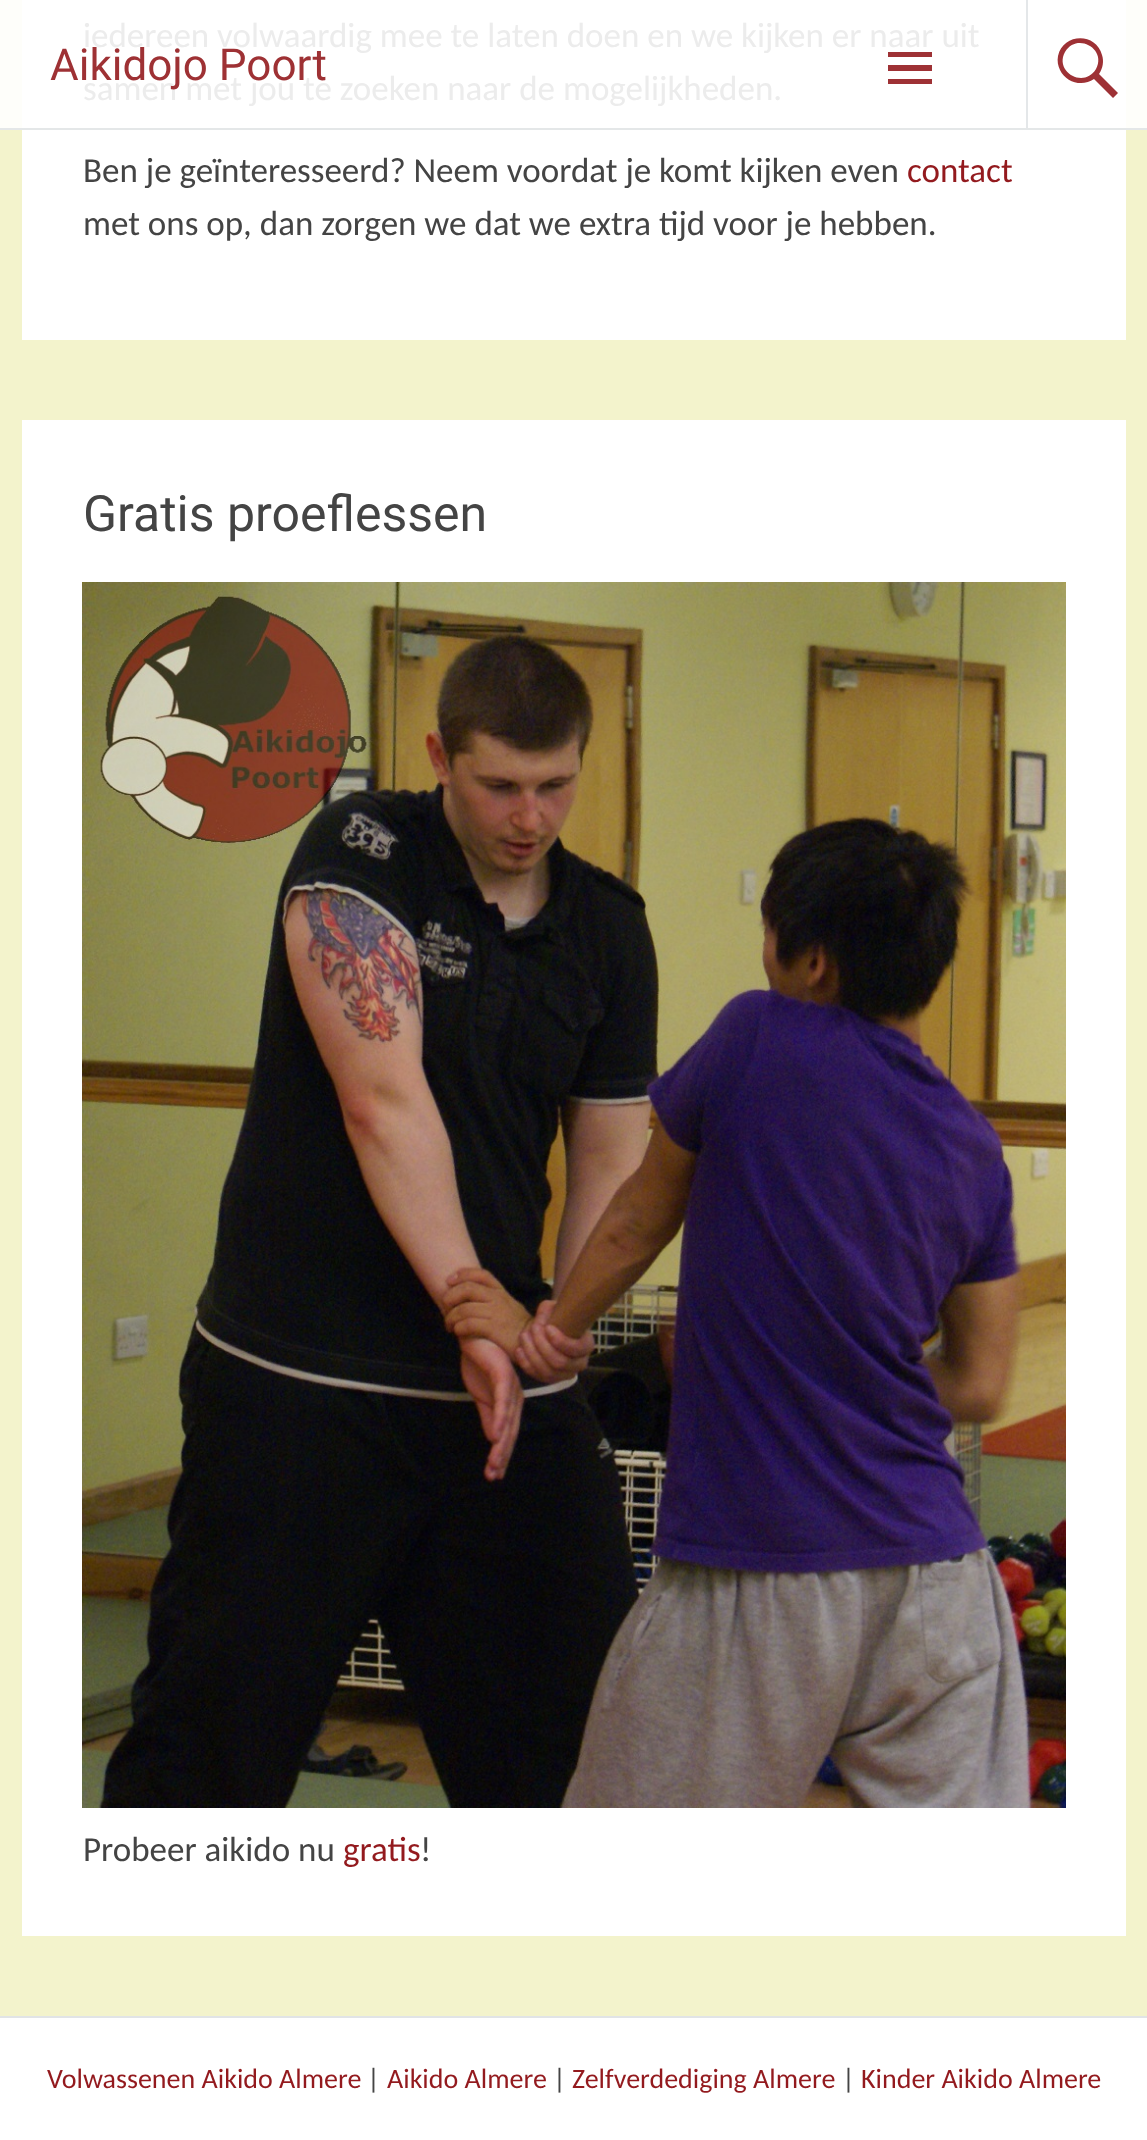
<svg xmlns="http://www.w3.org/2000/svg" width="1147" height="2140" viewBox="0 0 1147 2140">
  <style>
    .t1 { font: 35px Carlito; fill: #ececec; }
    .t2 { font: 35px Carlito; fill: #444; }
    .t3 { font: 35px Carlito; fill: #931a1e; }
    .t4 { font: 50px Roboto; fill: #444; }
    .t5 { font: 44px Roboto; fill: #9e3134; }
    .t6 { font: 28px Carlito; fill: #931a1e; }
    .t7 { font: 28px Carlito; fill: #444; }
  </style>
  <rect width="100%" height="100%" fill="#fff"/>
  <rect x="0" y="130" width="1147" height="1886" fill="#f3f3cc"/>
  <rect x="0" y="0" width="1147" height="128" fill="#fefefa"/>
  <rect x="0" y="128" width="1147" height="2" fill="#e4e7e8"/>
  <rect x="22" y="130" width="1104" height="210" fill="#fff"/>
  <rect x="22" y="0" width="1104" height="128" fill="#fff"/>
  <text x="83" y="47" class="t1">iedereen volwaardig mee te laten doen en we kijken er naar uit</text>
  <text x="83" y="100" class="t1">samen met jou te zoeken naar de mogelijkheden.</text>
  <text x="83" y="182" class="t2">Ben je geïnteresseerd? Neem voordat je komt kijken even</text>
  <text x="907" y="182" class="t3">contact</text>
  <text x="83" y="235" class="t2">met ons op, dan zorgen we dat we extra tijd voor je hebben.</text>
  <rect x="22" y="420" width="1104" height="1516" fill="#fff"/>
  <text x="83" y="531" class="t4">Gratis proeflessen</text>
  <image x="82" y="582" width="984" height="1226" href="images/1.png"/>
  <text x="83" y="1861" class="t2">Probeer aikido nu</text>
  <text x="343" y="1861" class="t3">gratis</text>
  <text x="420" y="1861" class="t2">!</text>
  <text x="50" y="80" class="t5">Aikidojo Poort</text>
  <path d="M888 84V79H932V84ZM888 52H932V57H888ZM888 71V65H932V71Z" fill="#9e3135"/>
  <rect x="1026" y="0" width="2" height="128" fill="#e4e7e9"/>
  <path d="M1118 93L1113 98L1094 79C1083 87 1066 83 1060 70C1058 66 1057 61 1058 56C1063 33 1096 32 1102 55C1104 61 1103 68 1099 74ZM1065 52C1054 72 1084 89 1096 69C1107 49 1077 32 1065 52Z" fill="#9e3135"/>
  <rect x="0" y="2016" width="1147" height="2" fill="#e1e4e6"/>
  <text x="47" y="2088" class="t6">Volwassenen Aikido Almere</text>
  <text x="367" y="2088" class="t7">|</text>
  <text x="387" y="2088" class="t6">Aikido Almere</text>
  <text x="553" y="2088" class="t7">|</text>
  <text x="572" y="2088" class="t6">Zelfverdediging Almere</text>
  <text x="842" y="2088" class="t7">|</text>
  <text x="861" y="2088" class="t6">Kinder Aikido Almere</text>
</svg>
